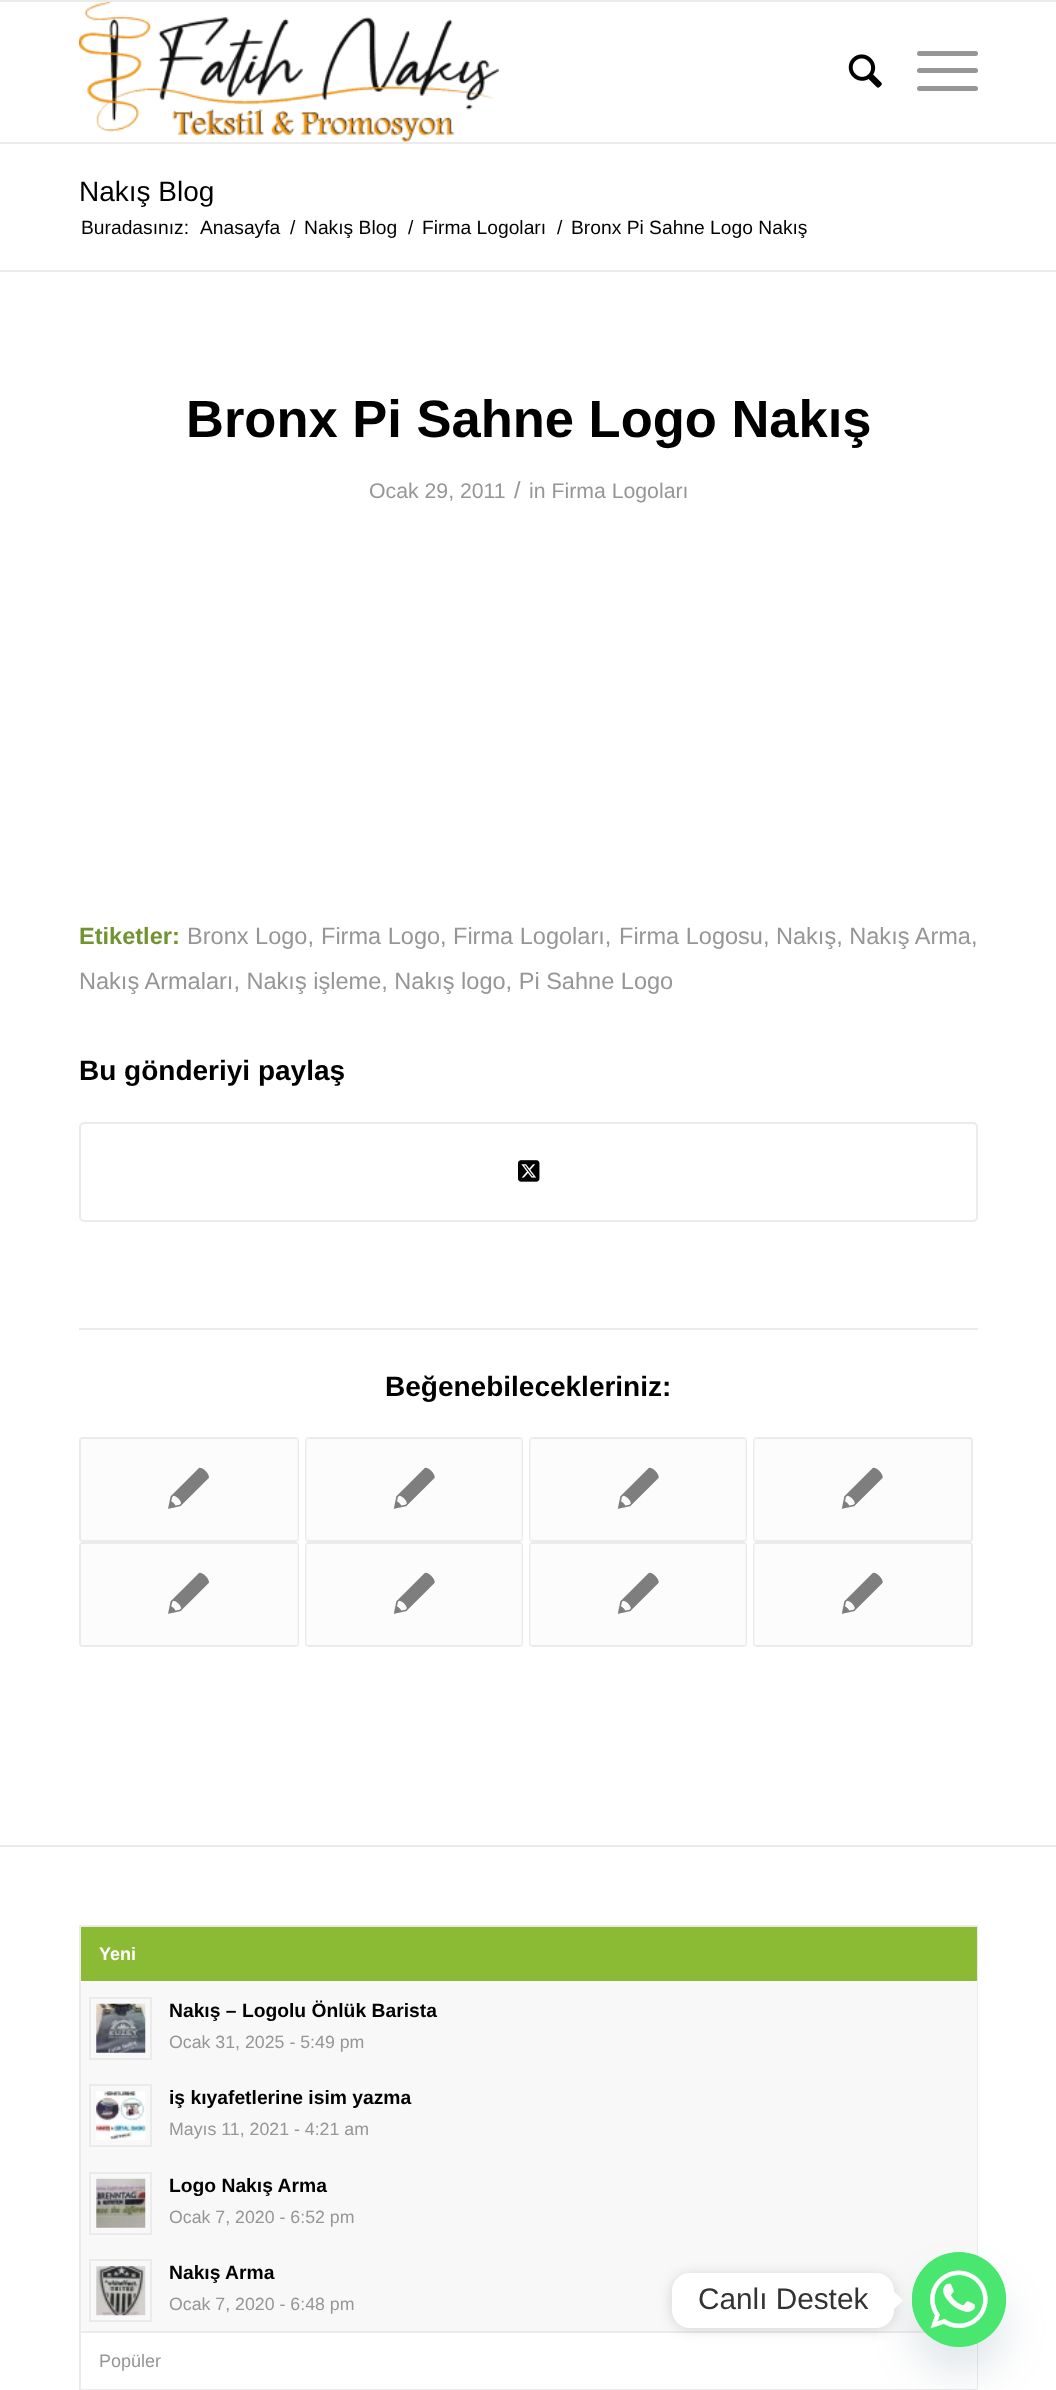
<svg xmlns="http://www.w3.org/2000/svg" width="1056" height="2390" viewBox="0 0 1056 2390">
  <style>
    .t1 { font: 28px Liberation Sans; fill: #000; }
    .t2 { font: 19.25px Liberation Sans; fill: #000; }
    .t3 { font: bold 52.5px Liberation Sans; fill: #000; }
    .t4 { font: 21.25px Liberation Sans; fill: #969696; }
    .t5 { font: 23.55px Liberation Sans; fill: #969696; }
    .t6 { font: bold 23.55px Liberation Sans; fill: #719430; }
    .t7 { font: bold 28px Liberation Sans; fill: #000; }
    .t8 { font: bold 18px Liberation Sans; fill: #fff; }
    .t9 { font: bold 19.3px Liberation Sans; fill: #000; }
    .t10 { font: 17.75px Liberation Sans; fill: #969696; }
    .t11 { font: 18px Liberation Sans; fill: #969696; }
    .t12 { font: 29.75px Liberation Sans; fill: #333; }
  </style>
  <rect width="100%" height="100%" fill="#fff"/>
  <rect x="0" y="0" width="1056" height="2" fill="#ebebeb"/>
  <rect x="0" y="142" width="1056" height="2" fill="#ebebeb"/>
  <image x="78" y="1" width="421" height="141" href="images/1.png"/>
  <image x="848" y="54" width="34" height="34" href="images/2.png"/>
  <rect x="917" y="68" width="61" height="5" rx="2.5" fill="#969696"/>
  <rect x="917" y="51" width="61" height="5" rx="2.5" fill="#969696"/>
  <rect x="917" y="86" width="61" height="5" rx="2.5" fill="#969696"/>
  <text x="79" y="201" class="t1">Nakış Blog</text>
  <text x="81" y="234" class="t2">Buradasınız:</text>
  <text x="200" y="234" class="t2">Anasayfa</text>
  <text x="290" y="234" class="t2">/</text>
  <text x="304" y="234" class="t2">Nakış Blog</text>
  <text x="408" y="234" class="t2">/</text>
  <text x="422" y="234" class="t2">Firma Logoları</text>
  <text x="557" y="234" class="t2">/</text>
  <text x="571" y="234" class="t2">Bronx Pi Sahne Logo Nakış</text>
  <rect x="0" y="270" width="1056" height="2" fill="#ebebeb"/>
  <text x="186" y="437" class="t3">Bronx Pi Sahne Logo Nakış</text>
  <text x="369" y="498" class="t4">Ocak 29, 2011</text>
  <text x="514" y="498" class="t5">/</text>
  <text x="529" y="498" class="t4">in Firma Logoları</text>
  <text x="79" y="944" class="t6">Etiketler:</text>
  <text x="187" y="944" class="t5">Bronx Logo,</text>
  <text x="321" y="944" class="t5">Firma Logo,</text>
  <text x="453" y="944" class="t5">Firma Logoları,</text>
  <text x="619" y="944" class="t5">Firma Logosu,</text>
  <text x="776" y="944" class="t5">Nakış, Nakış Arma,</text>
  <text x="79" y="989" class="t5">Nakış Armaları, Nakış işleme, Nakış logo, Pi Sahne Logo</text>
  <text x="79" y="1080" class="t7">Bu gönderiyi paylaş</text>
  <rect x="80" y="1123" width="897" height="98" rx="4" fill="none" stroke="#ebebeb" stroke-width="2"/>
  <image x="518" y="1160" width="22" height="22" href="images/3.png"/>
  <rect x="79" y="1328" width="899" height="2" fill="#ebebeb"/>
  <text x="385" y="1396" class="t7">Beğenebilecekleriniz:</text>
  <rect x="80" y="1438" width="218" height="103" rx="3" fill="#f8f8f8" stroke="#ebebeb" stroke-width="2"/>
  <rect x="81" y="1439" width="217" height="101" fill="#ffffff80"/>
  <image x="168" y="1467" width="41" height="42" href="images/4.png"/>
  <rect x="306" y="1438" width="216" height="103" rx="3" fill="#f8f8f8" stroke="#ebebeb" stroke-width="2"/>
  <rect x="306" y="1439" width="216" height="101" fill="#ffffff80"/>
  <image x="393" y="1467" width="42" height="42" href="images/5.png"/>
  <rect x="530" y="1438" width="216" height="103" rx="3" fill="#f8f8f8" stroke="#ebebeb" stroke-width="2"/>
  <rect x="530" y="1439" width="216" height="101" fill="#ffffff80"/>
  <image x="617" y="1467" width="42" height="42" href="images/5.png"/>
  <rect x="754" y="1438" width="218" height="103" rx="3" fill="#f8f8f8" stroke="#ebebeb" stroke-width="2"/>
  <rect x="754" y="1439" width="217" height="101" fill="#ffffff80"/>
  <image x="841" y="1467" width="42" height="42" href="images/5.png"/>
  <rect x="80" y="1543" width="218" height="103" rx="3" fill="#f8f8f8" stroke="#ebebeb" stroke-width="2"/>
  <rect x="81" y="1544" width="217" height="101" fill="#ffffff80"/>
  <image x="168" y="1572" width="41" height="42" href="images/4.png"/>
  <rect x="306" y="1543" width="216" height="103" rx="3" fill="#f8f8f8" stroke="#ebebeb" stroke-width="2"/>
  <rect x="306" y="1544" width="216" height="101" fill="#ffffff80"/>
  <image x="393" y="1572" width="42" height="42" href="images/5.png"/>
  <rect x="530" y="1543" width="216" height="103" rx="3" fill="#f8f8f8" stroke="#ebebeb" stroke-width="2"/>
  <rect x="530" y="1544" width="216" height="101" fill="#ffffff80"/>
  <image x="617" y="1572" width="42" height="42" href="images/5.png"/>
  <rect x="754" y="1543" width="218" height="103" rx="3" fill="#f8f8f8" stroke="#ebebeb" stroke-width="2"/>
  <rect x="754" y="1544" width="217" height="101" fill="#ffffff80"/>
  <image x="841" y="1572" width="42" height="42" href="images/5.png"/>
  <rect x="0" y="1845" width="1056" height="2" fill="#ebebeb"/>
  <rect x="977" y="1925" width="1" height="465" fill="#ebebeb"/>
  <rect x="79" y="1925" width="2" height="465" fill="#ebebeb"/>
  <rect x="81" y="1927" width="896" height="54" fill="#8bba34"/>
  <rect x="81" y="1925" width="896" height="2" fill="#ebebeb"/>
  <text x="99" y="1960" class="t8">Yeni</text>
  <rect x="81" y="1981" width="896" height="350" rx="4" fill="#f8f8f8"/>
  <rect x="90" y="1998" width="61" height="61" fill="none" stroke="#ebebeb" stroke-width="2"/>
  <image x="96" y="2003" width="50" height="50" href="images/6.png"/>
  <text x="169" y="2017" class="t9">Nakış – Logolu Önlük Barista</text>
  <text x="169" y="2048" class="t10">Ocak 31, 2025 - 5:49 pm</text>
  <rect x="90" y="2085" width="61" height="61" fill="none" stroke="#ebebeb" stroke-width="2"/>
  <image x="96" y="2091" width="50" height="49" href="images/7.png"/>
  <text x="169" y="2104" class="t9">iş kıyafetlerine isim yazma</text>
  <text x="169" y="2135" class="t10">Mayıs 11, 2021 - 4:21 am</text>
  <rect x="90" y="2173" width="61" height="61" fill="none" stroke="#ebebeb" stroke-width="2"/>
  <image x="96" y="2178" width="50" height="50" href="images/8.png"/>
  <text x="169" y="2192" class="t9">Logo Nakış Arma</text>
  <text x="169" y="2223" class="t10">Ocak 7, 2020 - 6:52 pm</text>
  <rect x="90" y="2260" width="61" height="61" fill="none" stroke="#ebebeb" stroke-width="2"/>
  <image x="96" y="2266" width="50" height="50" href="images/9.png"/>
  <text x="169" y="2279" class="t9">Nakış Arma</text>
  <text x="169" y="2310" class="t10">Ocak 7, 2020 - 6:48 pm</text>
  <rect x="81" y="2331" width="845" height="2" fill="#ebebeb"/>
  <text x="99" y="2367" class="t11">Popüler</text>
  <rect x="81" y="2389" width="896" height="1" fill="#ebebeb"/>
  <rect x="912" y="2280" width="94" height="95" rx="47" fill="#49687e29" filter="blur(21px)"/>
  <rect x="912" y="2252" width="94" height="95" rx="47" fill="#49e670"/>
  <image x="912" y="2252" width="94" height="95" href="images/10.png"/>
  <rect x="672" y="2275" width="222" height="54" rx="18" fill="#00000026" filter="blur(7px)"/>
  <rect x="672" y="2273" width="222" height="55" rx="18" fill="#fff"/>
  <text x="698" y="2309" class="t12">Canlı Destek</text>
  <path d="M894 2309V2291.5L903 2300.5Z" fill="#fff"/>
</svg>
